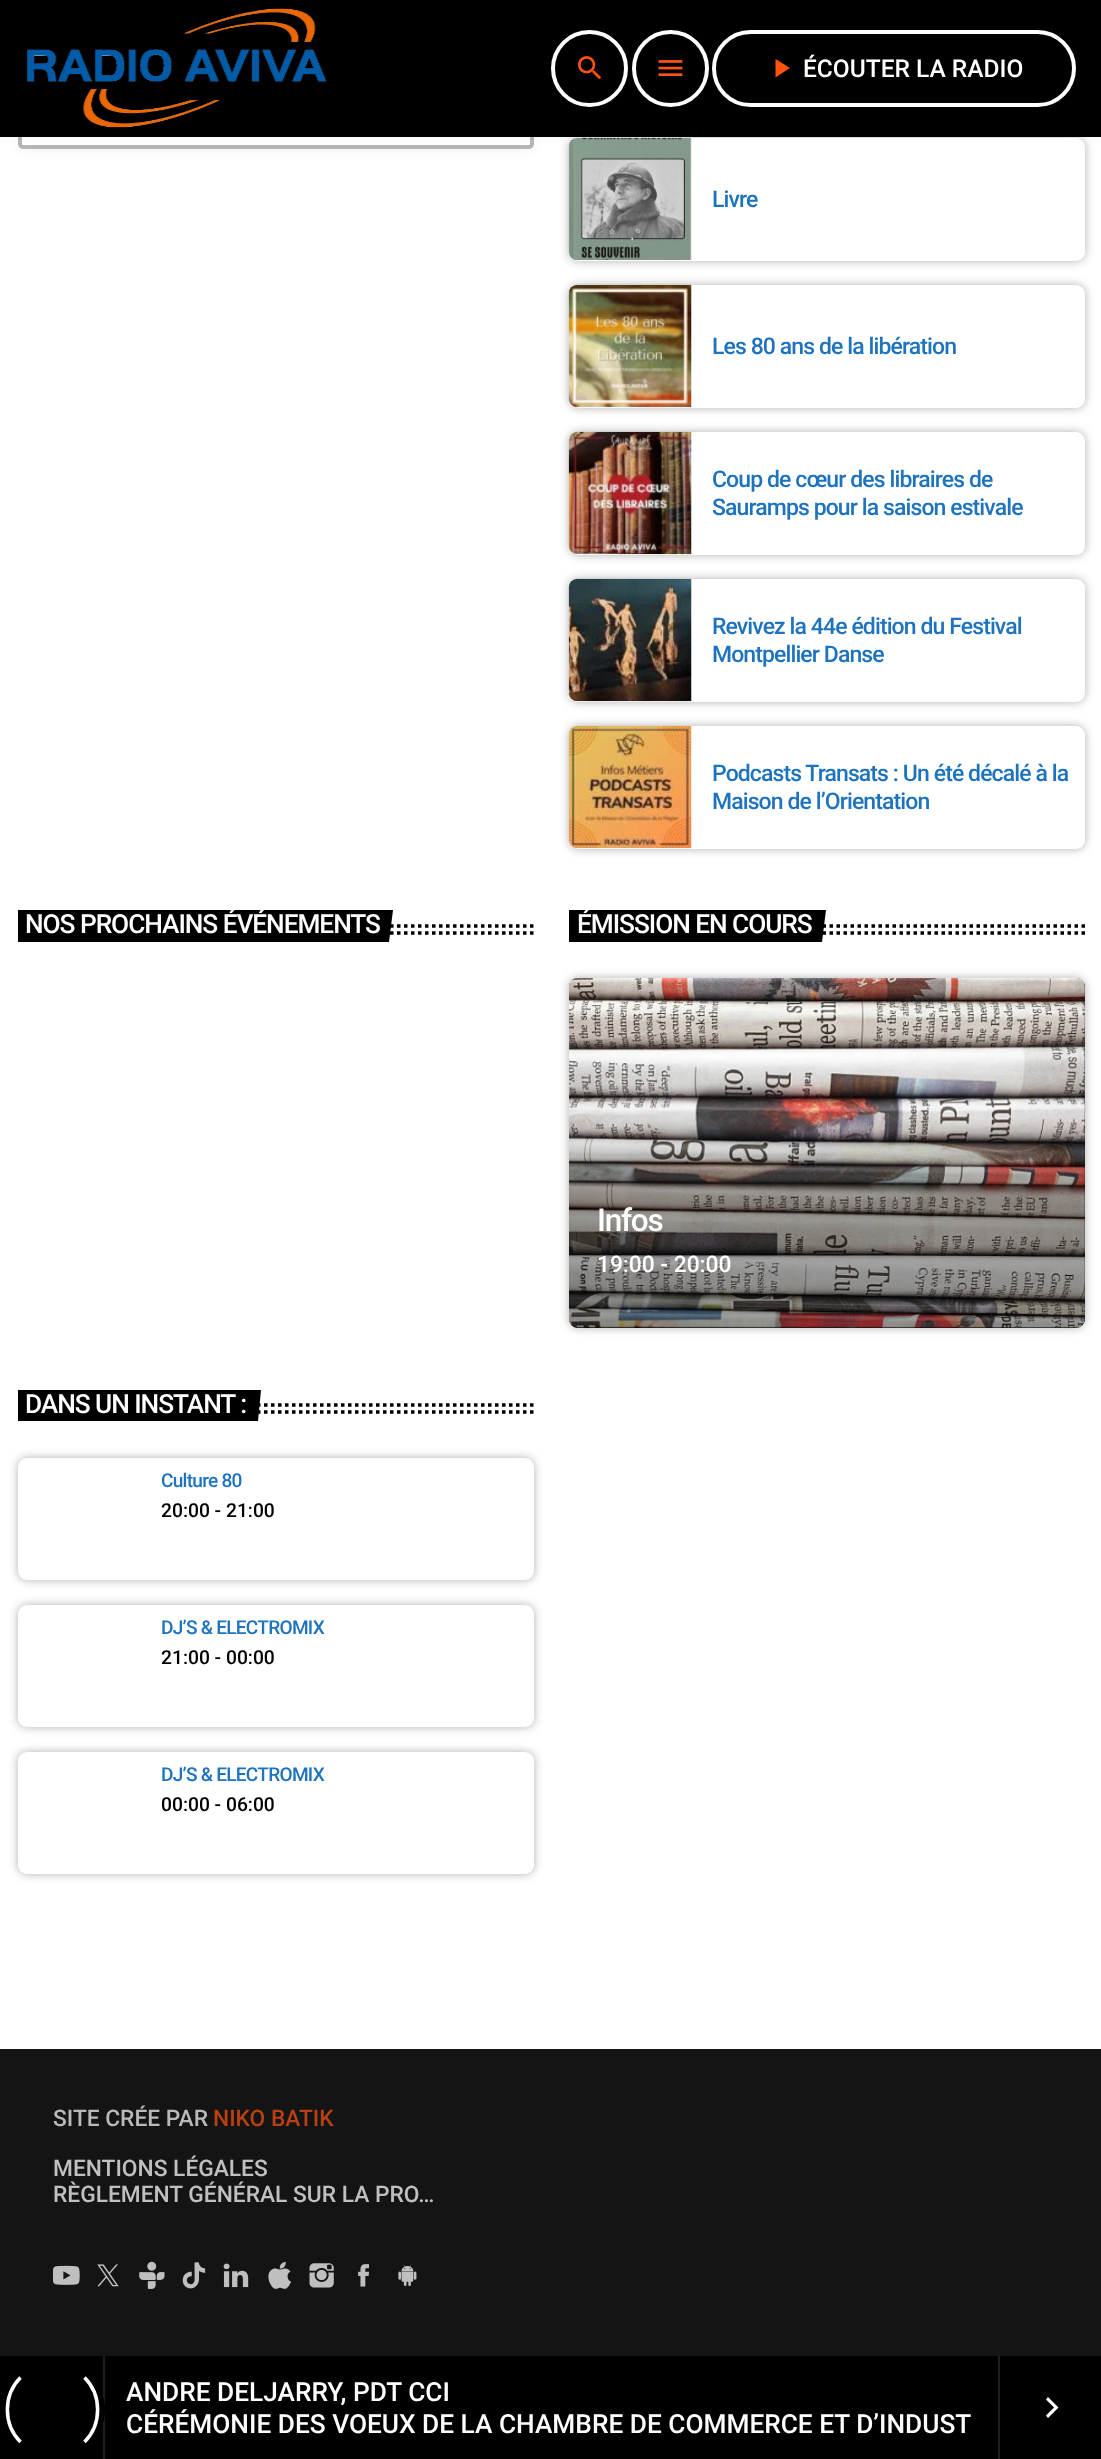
<svg xmlns="http://www.w3.org/2000/svg" width="1101" height="2459" viewBox="0 0 1101 2459">
  <style>
    .t1 { font: 500 24.5px Roboto; fill: #fff; }
    .t2 { font: 500 23px Roboto; letter-spacing: -0.9px; fill: #1e73be; }
    .t3 { font: 500 26.25px Roboto; letter-spacing: -1.05px; fill: #fff; }
    .t4 { font: 500 31.5px Roboto; letter-spacing: -1.25px; fill: #fff; }
    .t5 { font: 500 22.75px Roboto; fill: #fff; }
    .t6 { font: 500 19.1px Roboto; letter-spacing: -0.75px; fill: #1e73be; }
    .t7 { font: 500 19.25px Roboto; fill: #000; }
    .t8 { font: 500 22.75px Roboto; fill: #b9b9b9; }
    .t9 { font: 500 22.75px Roboto; fill: #b94011; }
    .t10 { font: 500 22.75px Roboto; fill: #c0c0c0; }
    .t11 { font: 500 26.25px Roboto; fill: #fff; }
  </style>
  <defs>
    <clipPath id="clip1"><rect x="18" y="910" width="381" height="32"/></clipPath>
    <clipPath id="clip2"><rect x="569" y="910" width="261" height="32"/></clipPath>
    <linearGradient id="g1" gradientUnits="userSpaceOnUse" x1="827" y1="978" x2="827" y2="1328"><stop offset="0" stop-color="#fff" stop-opacity="0"/><stop offset="0.4" stop-color="#000" stop-opacity="0"/><stop offset="0.65" stop-color="#000" stop-opacity="0.34"/><stop offset="1" stop-color="#000" stop-opacity="0.34"/></linearGradient>
    <clipPath id="clip3"><rect x="18" y="1390" width="246" height="31"/></clipPath>
  </defs>
  <rect width="100%" height="100%" fill="#fff"/>
  <rect x="18" y="70" width="516" height="79" rx="5" fill="#0000000d" filter="blur(7px)"/>
  <rect x="20" y="72" width="512" height="75" rx="3" fill="#fff" stroke="#b5b5b5" stroke-width="4"/>
  <rect x="569" y="138" width="516" height="123" rx="9" fill="#0000004f" filter="blur(5px)"/>
  <rect x="0" y="0" width="1101" height="137" fill="#000"/>
  <image x="27" y="8" width="300" height="120" href="images/1.png"/>
  <circle cx="589.5" cy="68.5" r="36.5" fill="none" stroke="#fff" stroke-width="4"/>
  <image x="578" y="56" width="24" height="24" href="images/2.png"/>
  <circle cx="670.5" cy="68.5" r="36.5" fill="none" stroke="#fff" stroke-width="4"/>
  <image x="658" y="60" width="25" height="17" href="images/3.png"/>
  <rect x="714" y="32" width="360" height="73" rx="36.5" fill="none" stroke="#fff" stroke-width="4"/>
  <path d="M775.5 59L790 68L775.5 77.5Z" fill="#ff530f"/>
  <text x="803" y="77" class="t1">ÉCOUTER LA RADIO</text>
  <rect x="569" y="138" width="516" height="123" rx="9" fill="#fff"/>
  <image x="568" y="137" width="124" height="124" href="images/4.png"/>
  <text x="712" y="207" class="t2">Livre</text>
  <rect x="569" y="285" width="516" height="123" rx="9" fill="#0000004f" filter="blur(5px)"/>
  <rect x="569" y="285" width="516" height="123" rx="9" fill="#fff"/>
  <image x="568" y="284" width="124" height="124" href="images/5.png"/>
  <text x="712" y="354" class="t2">Les 80 ans de la libération</text>
  <rect x="569" y="432" width="516" height="123" rx="9" fill="#0000004f" filter="blur(5px)"/>
  <rect x="569" y="432" width="516" height="123" rx="9" fill="#fff"/>
  <image x="568" y="431" width="124" height="124" href="images/6.png"/>
  <text x="712" y="487" class="t2">Coup de cœur des libraires de</text>
  <text x="712" y="515" class="t2">Sauramps pour la saison estivale</text>
  <rect x="569" y="579" width="516" height="123" rx="9" fill="#0000004f" filter="blur(5px)"/>
  <rect x="569" y="579" width="516" height="123" rx="9" fill="#fff"/>
  <image x="568" y="578" width="124" height="124" href="images/7.png"/>
  <text x="712" y="634" class="t2">Revivez la 44e édition du Festival</text>
  <text x="712" y="662" class="t2">Montpellier Danse</text>
  <rect x="569" y="726" width="516" height="123" rx="9" fill="#0000004f" filter="blur(5px)"/>
  <rect x="569" y="726" width="516" height="123" rx="9" fill="#fff"/>
  <image x="568" y="725" width="124" height="124" href="images/8.png"/>
  <text x="712" y="781" class="t2">Podcasts Transats : Un été décalé à la</text>
  <text x="712" y="809" class="t2">Maison de l’Orientation</text>
  <path d="M26 926H534" fill="none" stroke="#000" stroke-width="3.5" stroke-dasharray="3.5 3.5"/>
  <path d="M26 933H534" fill="none" stroke="#000" stroke-width="3.5" stroke-dasharray="3.5 3.5"/>
  <g clip-path="url(#clip1)">
    <path d="M16 910H393L389 942H12Z" fill="#000"/>
    <text x="25" y="933" class="t3">NOS PROCHAINS ÉVÉNEMENTS</text>
  </g>
  <path d="M577.5 926H1085" fill="none" stroke="#000" stroke-width="3.5" stroke-dasharray="3.5 3.5"/>
  <path d="M577.5 933H1085" fill="none" stroke="#000" stroke-width="3.5" stroke-dasharray="3.5 3.5"/>
  <g clip-path="url(#clip2)">
    <path d="M563 910H826L822 942H559Z" fill="#000"/>
    <text x="577" y="933" class="t3">ÉMISSION EN COURS</text>
  </g>
  <rect x="569" y="978" width="516" height="350" rx="9" fill="#0000004f" filter="blur(5px)"/>
  <rect x="569" y="978" width="516" height="350" rx="9" fill="#111"/>
  <image x="569" y="978" width="516" height="350" href="images/9.png"/>
  <rect x="569" y="978" width="516" height="350" rx="9" fill="url(#g1)"/>
  <text x="597" y="1231" class="t4">Infos</text>
  <text x="597" y="1272" class="t5">19:00 - 20:00</text>
  <path d="M26 1405H534" fill="none" stroke="#000" stroke-width="3.5" stroke-dasharray="3.5 3.5"/>
  <path d="M26 1412H534" fill="none" stroke="#000" stroke-width="3.5" stroke-dasharray="3.5 3.5"/>
  <g clip-path="url(#clip3)">
    <path d="M12 1390H261L258 1421H8Z" fill="#000"/>
  </g>
  <text x="25" y="1413" class="t3">DANS UN INSTANT :</text>
  <rect x="18" y="1458" width="516" height="122" rx="9" fill="#0000004f" filter="blur(5px)"/>
  <rect x="18" y="1458" width="516" height="122" rx="9" fill="#fff"/>
  <text x="161" y="1487" class="t6">Culture 80</text>
  <text x="161" y="1517" class="t7">20:00 - 21:00</text>
  <rect x="18" y="1605" width="516" height="122" rx="9" fill="#0000004f" filter="blur(5px)"/>
  <rect x="18" y="1605" width="516" height="122" rx="9" fill="#fff"/>
  <text x="161" y="1634" class="t6">DJ’S &amp; ELECTROMIX</text>
  <text x="161" y="1664" class="t7">21:00 - 00:00</text>
  <rect x="18" y="1752" width="516" height="122" rx="9" fill="#0000004f" filter="blur(5px)"/>
  <rect x="18" y="1752" width="516" height="122" rx="9" fill="#fff"/>
  <text x="161" y="1781" class="t6">DJ’S &amp; ELECTROMIX</text>
  <text x="161" y="1811" class="t7">00:00 - 06:00</text>
  <rect x="0" y="2049" width="1101" height="307" fill="#141414"/>
  <text x="53" y="2126" class="t8">SITE CRÉE PAR</text>
  <text x="213" y="2126" class="t9">NIKO BATIK</text>
  <text x="53" y="2176" class="t10">MENTIONS LÉGALES</text>
  <text x="53" y="2202" class="t10">RÈGLEMENT GÉNÉRAL SUR LA PRO…</text>
  <image x="53" y="2265" width="27" height="20" href="images/10.png"/>
  <image x="97" y="2264" width="22" height="23" href="images/11.png"/>
  <image x="139" y="2261" width="26" height="28" href="images/12.png"/>
  <image x="182" y="2262" width="24" height="27" href="images/13.png"/>
  <image x="223" y="2263" width="26" height="25" href="images/14.png"/>
  <image x="268" y="2261" width="23" height="28" href="images/15.png"/>
  <image x="309" y="2263" width="25" height="25" href="images/16.png"/>
  <image x="358" y="2264" width="11" height="23" href="images/17.png"/>
  <image x="398" y="2264" width="19" height="22" href="images/18.png"/>
  <rect x="0" y="2356" width="1101" height="103" fill="#000"/>
  <rect x="103" y="2356" width="2" height="103" fill="#1e1e1e"/>
  <circle cx="52.5" cy="2409.5" r="52.5" fill="#000"/>
  <path d="M84.5 2377.5C102 2395 102 2424.5 84.5 2442" fill="none" stroke="#fff" stroke-width="3.5"/>
  <path d="M20.5 2442C3 2424.5 3 2395 20.5 2377.5" fill="none" stroke="#fff" stroke-width="3.5"/>
  <text x="126" y="2401" class="t11">ANDRE DELJARRY, PDT CCI</text>
  <text x="126" y="2433" class="t11">CÉRÉMONIE DES VOEUX DE LA CHAMBRE DE COMMERCE ET D’INDUST</text>
  <rect x="998" y="2356" width="2" height="103" fill="#1e1e1e"/>
  <path d="M1046 2415.5L1054 2407.5L1046 2399.5L1048 2397L1058.5 2407.5L1048 2418Z" fill="#fff"/>
</svg>
